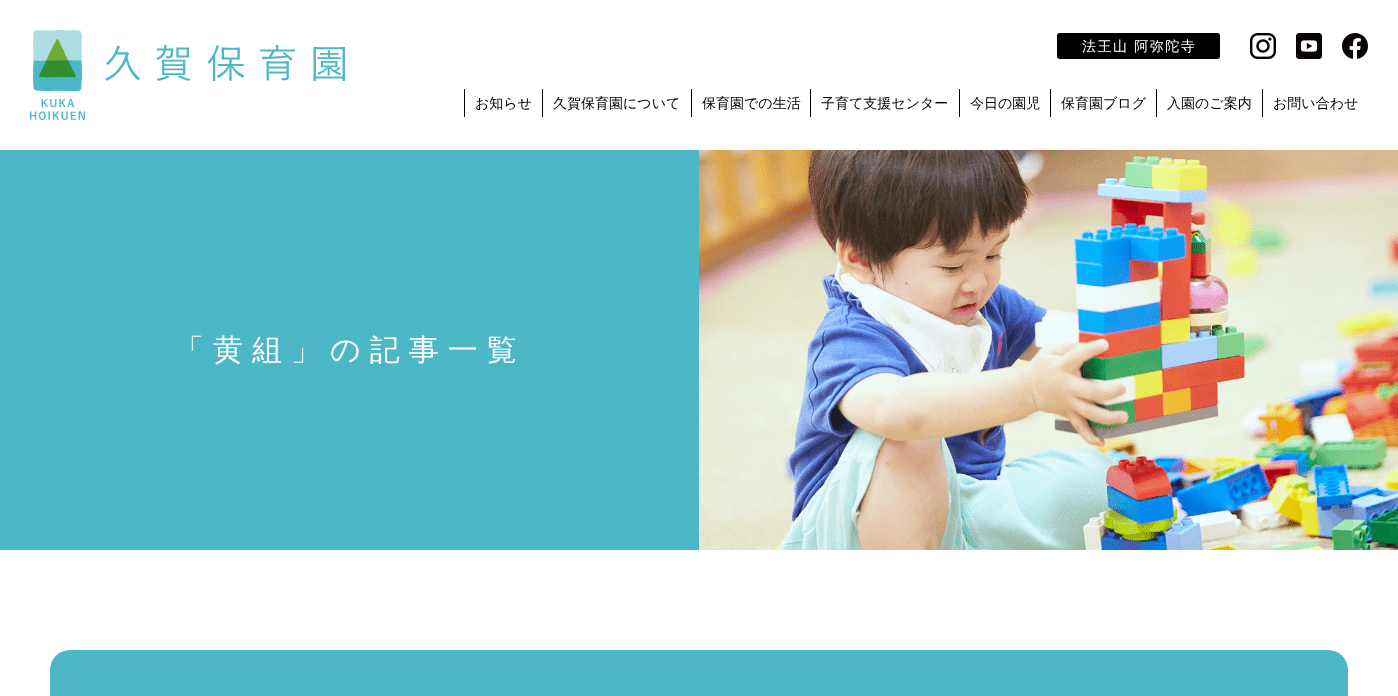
<svg xmlns="http://www.w3.org/2000/svg" width="1398" height="696" viewBox="0 0 1398 696">
  <style>
    .t1 { font: 500 14px WenQuanYi Zen Hei; letter-spacing: 1.5px; fill: #fff; }
    .t2 { font: 500 14px WenQuanYi Zen Hei; fill: #000; }
    .t3 { font: 500 30px WenQuanYi Zen Hei; letter-spacing: 9px; fill: #fff; }
  </style>
  <rect width="100%" height="100%" fill="#fff"/>
  <image x="30" y="30" width="315" height="90" href="images/1.png"/>
  <rect x="1057" y="33" width="163" height="26" rx="3" fill="#000"/>
  <text x="1082" y="51" class="t1">法王山 阿弥陀寺</text>
  <image x="1250" y="33" width="26" height="26" href="images/2.png"/>
  <image x="1296" y="33" width="26" height="26" href="images/3.png"/>
  <image x="1342" y="33" width="26" height="26" href="images/4.png"/>
  <rect x="464" y="89" width="1" height="28" fill="#000"/>
  <text x="475" y="108" class="t2">お知らせ</text>
  <rect x="542" y="89" width="1" height="28" fill="#000"/>
  <text x="553" y="108" class="t2">久賀保育園について</text>
  <rect x="691" y="89" width="1" height="28" fill="#000"/>
  <text x="702" y="108" class="t2">保育園での生活</text>
  <rect x="810" y="89" width="1" height="28" fill="#000"/>
  <text x="821" y="108" class="t2">子育て支援センター</text>
  <rect x="959" y="89" width="1" height="28" fill="#000"/>
  <text x="970" y="108" class="t2">今日の園児</text>
  <rect x="1050" y="89" width="1" height="28" fill="#000"/>
  <text x="1061" y="108" class="t2">保育園ブログ</text>
  <rect x="1156" y="89" width="1" height="28" fill="#000"/>
  <text x="1167" y="108" class="t2">入園のご案内</text>
  <rect x="1262" y="89" width="1" height="28" fill="#000"/>
  <text x="1273" y="108" class="t2">お問い合わせ</text>
  <rect x="0" y="150" width="699" height="400" fill="#4cb7c6"/>
  <text x="174" y="360" class="t3">「黄組」の記事一覧</text>
  <image x="699" y="150" width="699" height="400" href="images/5.png"/>
  <rect x="50" y="650" width="1298" height="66" rx="20" fill="#4cb7c6"/>
</svg>
